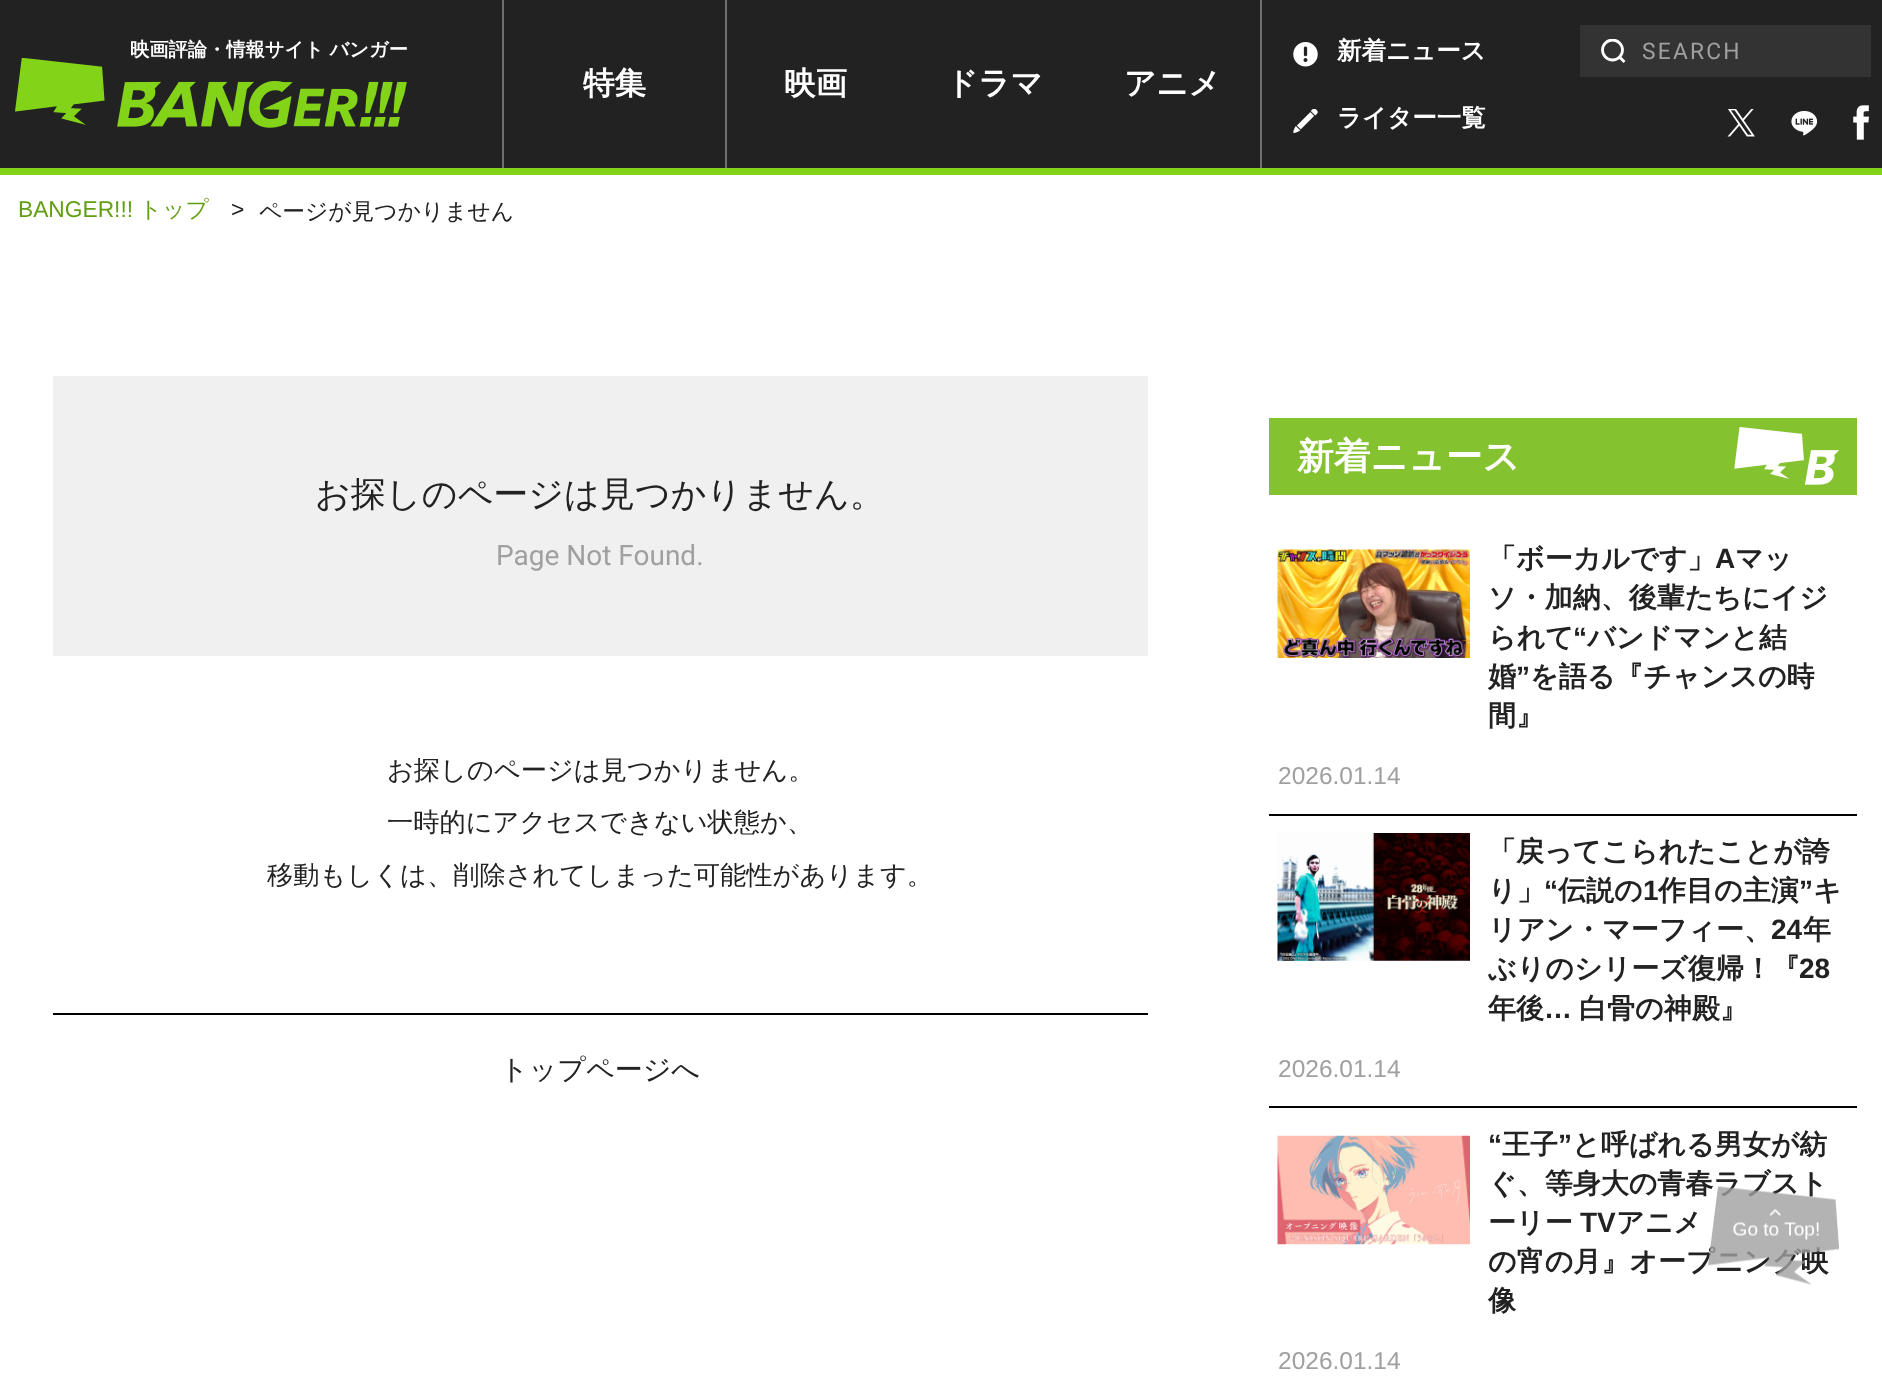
<svg xmlns="http://www.w3.org/2000/svg" width="1882" height="1396" viewBox="0 0 1882 1396">
  <style>
    .t1 { font: bold 19.25px WenQuanYi Zen Hei; fill: #fff; }
    .t2 { font: bold 24.5px WenQuanYi Zen Hei; fill: #fff; }
    .t3 { font: bold 31.5px WenQuanYi Zen Hei; fill: #fff; }
    .t4 { font: 22.75px Roboto; letter-spacing: 2.25px; fill: #a0a0a0; }
    .t5 { font: 22.75px Liberation Sans; fill: #639f13; }
    .t6 { font: 500 22.75px WenQuanYi Zen Hei; fill: #639f13; }
    .t7 { font: 22.75px Liberation Sans; fill: #222; }
    .t8 { font: 500 22.75px WenQuanYi Zen Hei; fill: #222; }
    .t9 { font: 500 35px WenQuanYi Zen Hei; fill: #222; }
    .t10 { font: 28px Roboto; fill: #a0a0a0; }
    .t11 { font: 500 26.25px WenQuanYi Zen Hei; fill: #222; }
    .t12 { font: 500 28px WenQuanYi Zen Hei; fill: #222; }
    .t13 { font: bold 36.75px WenQuanYi Zen Hei; fill: #fff; }
    .t14 { font: bold 28px WenQuanYi Zen Hei; fill: #222; }
    .t15 { font: bold 28px Liberation Sans; fill: #222; }
    .t16 { font: 24.5px Liberation Sans; fill: #a0a0a0; }
  </style>
  <defs>
    <clipPath id="clip1"><rect x="1601" y="39" width="25" height="24"/></clipPath>
  </defs>
  <rect width="100%" height="100%" fill="#fff"/>
  <rect x="0" y="0" width="1882" height="168" fill="#222"/>
  <rect x="0" y="168" width="1882" height="7" fill="#83d318"/>
  <text x="130" y="56" class="t1">映画評論・情報サイト バンガー</text>
  <image x="15" y="58" width="392" height="70" href="images/1.png"/>
  <image x="1293" y="42" width="25" height="25" href="images/2.png"/>
  <text x="1337" y="59" class="t2">新着ニュース</text>
  <rect x="725" y="0" width="2" height="168" fill="#707070"/>
  <rect x="502" y="0" width="2" height="168" fill="#707070"/>
  <text x="583" y="94" class="t3">特集</text>
  <text x="784" y="94" class="t3">映画</text>
  <text x="946" y="94" class="t3">ドラマ</text>
  <rect x="1260" y="0" width="2" height="168" fill="#707070"/>
  <text x="1124" y="94" class="t3">アニメ</text>
  <image x="1293" y="109" width="25" height="24" href="images/3.png"/>
  <text x="1337" y="126" class="t2">ライター一覧</text>
  <rect x="1580" y="25" width="291" height="52" fill="#333"/>
  <g clip-path="url(#clip1)">
    <circle cx="1612.5" cy="50" r="10" fill="none" stroke="#fff" stroke-width="2.8"/>
  </g>
  <path d="M1624.5 62L1619.5 57" fill="none" stroke="#fff" stroke-width="2.8"/>
  <text x="1642" y="59" class="t4">SEARCH</text>
  <image x="1727" y="109" width="28" height="28" href="images/4.png"/>
  <image x="1791" y="110" width="27" height="26" href="images/5.png"/>
  <image x="1853" y="105" width="16" height="35" href="images/6.png"/>
  <text x="18" y="217" class="t5">BANGER!!!</text>
  <text x="139" y="217" class="t6">トップ</text>
  <text x="231" y="217" class="t7">&gt;</text>
  <text x="259" y="219" class="t8">ページが見つかりません</text>
  <rect x="53" y="376" width="1095" height="280" fill="#f0f0f0"/>
  <text x="315" y="506" class="t9">お探しのページは見つかりません。</text>
  <text x="496" y="565" class="t10">Page Not Found.</text>
  <text x="387" y="779" class="t11">お探しのページは見つかりません。</text>
  <text x="387" y="831" class="t11">一時的にアクセスできない状態か、</text>
  <text x="267" y="884" class="t11">移動もしくは、削除されてしまった可能性があります。</text>
  <rect x="53" y="1013" width="1095" height="2" fill="#000"/>
  <text x="500" y="1079" class="t12">トップページへ</text>
  <rect x="1269" y="418" width="588" height="77" fill="#84c230"/>
  <image x="1734" y="427" width="105" height="58" href="images/7.png"/>
  <text x="1297" y="469" class="t13">新着ニュース</text>
  <rect x="1269" y="814" width="588" height="2" fill="#000"/>
  <image x="1277" y="549" width="193" height="109" href="images/8.png"/>
  <text x="1488" y="568" class="t14">「ボーカルです」</text>
  <text x="1715" y="568" class="t15">A</text>
  <text x="1735" y="568" class="t14">マッ</text>
  <text x="1488" y="607" class="t14">ソ・加納、後輩たちにイジ</text>
  <text x="1488" y="647" class="t14">られて</text>
  <text x="1573" y="647" class="t15">“</text>
  <text x="1587" y="647" class="t14">バンドマンと結</text>
  <text x="1488" y="686" class="t14">婚</text>
  <text x="1516" y="686" class="t15">”</text>
  <text x="1530" y="686" class="t14">を語る『チャンスの時</text>
  <text x="1488" y="725" class="t14">間』</text>
  <text x="1278" y="784" class="t16">2026.01.14</text>
  <rect x="1269" y="1106" width="588" height="2" fill="#000"/>
  <image x="1277" y="833" width="193" height="128" href="images/9.png"/>
  <text x="1488" y="861" class="t14">「戻ってこられたことが誇</text>
  <text x="1488" y="900" class="t14">り」</text>
  <text x="1544" y="900" class="t15">“</text>
  <text x="1558" y="900" class="t14">伝説の</text>
  <text x="1643" y="900" class="t15">1</text>
  <text x="1658" y="900" class="t14">作目の主演</text>
  <text x="1799" y="900" class="t15">”</text>
  <text x="1813" y="900" class="t14">キ</text>
  <text x="1488" y="939" class="t14">リアン・マーフィー、</text>
  <text x="1771" y="939" class="t15">24</text>
  <text x="1803" y="939" class="t14">年</text>
  <text x="1488" y="978" class="t14">ぶりのシリーズ復帰！『</text>
  <text x="1799" y="978" class="t15">28</text>
  <text x="1488" y="1018" class="t14">年後</text>
  <text x="1544" y="1018" class="t15">…</text>
  <text x="1579" y="1018" class="t14">白骨の神殿』</text>
  <text x="1278" y="1077" class="t16">2026.01.14</text>
  <image x="1277" y="1135" width="193" height="110" href="images/10.png"/>
  <text x="1488" y="1154" class="t15">“</text>
  <text x="1502" y="1154" class="t14">王子</text>
  <text x="1558" y="1154" class="t15">”</text>
  <text x="1572" y="1154" class="t14">と呼ばれる男女が紡</text>
  <text x="1488" y="1193" class="t14">ぐ、等身大の青春ラブスト</text>
  <text x="1488" y="1232" class="t14">ーリー</text>
  <text x="1580" y="1232" class="t15">TV</text>
  <text x="1616" y="1232" class="t14">アニメ</text>
  <text x="1488" y="1271" class="t14">の宵の月』オープニング映</text>
  <text x="1488" y="1310" class="t14">像</text>
  <text x="1278" y="1369" class="t16">2026.01.14</text>
  <image x="1708" y="1186" width="131" height="99" href="images/11.png"/>
</svg>
